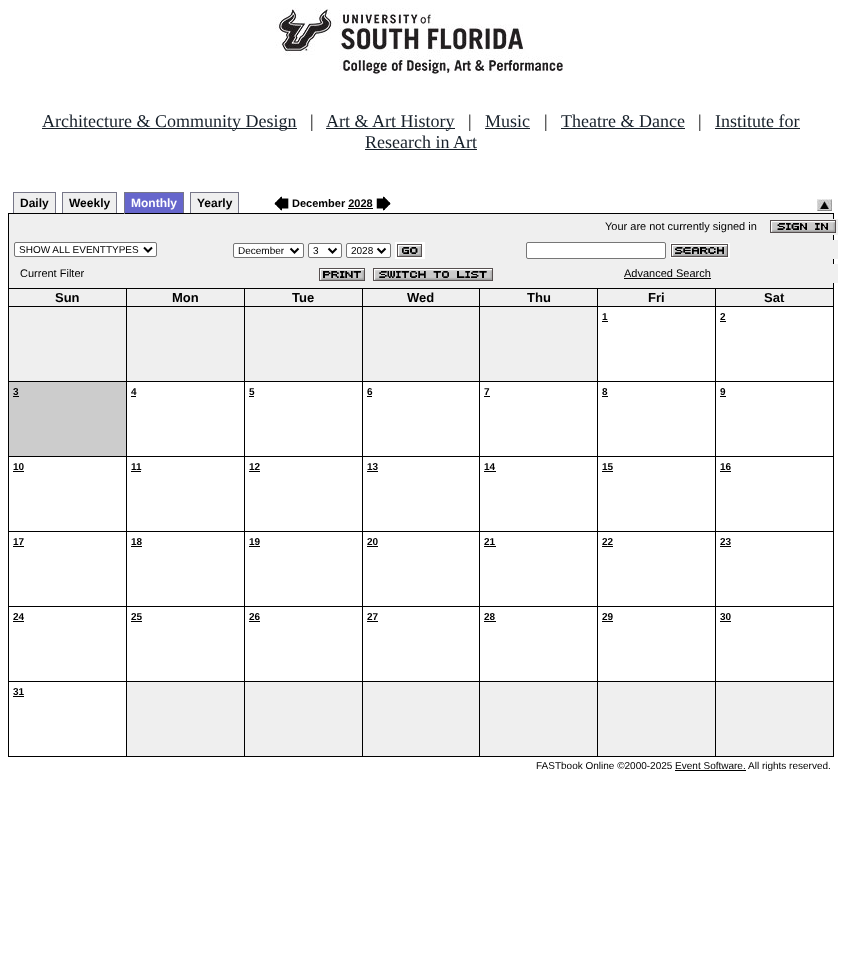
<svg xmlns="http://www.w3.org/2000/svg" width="842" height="980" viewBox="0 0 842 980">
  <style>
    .t1 { font: 18px Liberation Serif; fill: #17202a; }
    .t2 { font: 18px Liberation Serif; fill: #000; }
    .t3 { font: bold 12px Liberation Sans; fill: #000; }
    .t4 { font: bold 12px Liberation Sans; fill: #fff; }
    .t5 { font: bold 11px Liberation Sans; fill: #000; }
    .t6 { font: 11px Liberation Sans; fill: #000; }
    .t7 { font: 10px Liberation Sans; fill: #000; }
    .t8 { font: bold 13px Liberation Sans; fill: #000; }
    .t9 { font: bold 10px Liberation Sans; fill: #000; }
  </style>
  <rect width="100%" height="100%" fill="#fff"/>
  <image x="275" y="8" width="288" height="67" href="images/1.png"/>
  <rect x="42" y="128" width="255" height="1" fill="#17202a"/>
  <text x="42" y="127" class="t1">Architecture &amp; Community Design</text>
  <text x="310" y="127" class="t2">|</text>
  <rect x="326" y="128" width="129" height="1" fill="#17202a"/>
  <text x="326" y="127" class="t1">Art &amp; Art History</text>
  <text x="468" y="127" class="t2">|</text>
  <text x="485" y="127" class="t1">Music</text>
  <rect x="485" y="128" width="45" height="1" fill="#17202a"/>
  <text x="544" y="127" class="t2">|</text>
  <text x="561" y="127" class="t1">Theatre &amp; Dance</text>
  <rect x="561" y="128" width="124" height="1" fill="#17202a"/>
  <text x="698" y="127" class="t2">|</text>
  <text x="715" y="127" class="t1">Institute for</text>
  <rect x="715" y="128" width="85" height="1" fill="#17202a"/>
  <text x="365" y="148" class="t1">Research in Art</text>
  <rect x="365" y="149" width="112" height="1" fill="#17202a"/>
  <rect x="14" y="193" width="41" height="20" fill="#efefef"/>
  <text x="20" y="207" class="t3">Daily</text>
  <rect x="13" y="192" width="43" height="1" fill="#778"/>
  <rect x="55" y="192" width="1" height="21" fill="#778"/>
  <rect x="13" y="192" width="1" height="21" fill="#778"/>
  <rect x="63" y="193" width="53" height="20" fill="#efefef"/>
  <text x="69" y="207" class="t3">Weekly</text>
  <rect x="62" y="192" width="55" height="1" fill="#778"/>
  <rect x="116" y="192" width="1" height="21" fill="#778"/>
  <rect x="62" y="192" width="1" height="21" fill="#778"/>
  <rect x="125" y="193" width="58" height="20" fill="#66c"/>
  <text x="131" y="207" class="t4">Monthly</text>
  <rect x="124" y="192" width="60" height="1" fill="#778"/>
  <rect x="8" y="213" width="826" height="1" fill="#000"/>
  <rect x="183" y="192" width="1" height="22" fill="#778"/>
  <rect x="183" y="213" width="1" height="1" fill="#000"/>
  <rect x="124" y="192" width="1" height="22" fill="#778"/>
  <rect x="191" y="193" width="47" height="20" fill="#efefef"/>
  <text x="197" y="207" class="t3">Yearly</text>
  <rect x="190" y="192" width="49" height="1" fill="#778"/>
  <rect x="238" y="192" width="1" height="21" fill="#778"/>
  <rect x="190" y="192" width="1" height="21" fill="#778"/>
  <image x="274" y="196" width="15" height="15" href="images/2.png"/>
  <text x="292" y="207" class="t5">December 2028</text>
  <rect x="348" y="208" width="25" height="1" fill="#000"/>
  <image x="376" y="196" width="15" height="15" href="images/3.png"/>
  <image x="817" y="199" width="15" height="12" href="images/4.png"/>
  <rect x="9" y="214" width="824" height="74" fill="#efefef"/>
  <rect x="833" y="213" width="1" height="75" fill="#000"/>
  <rect x="8" y="213" width="1" height="75" fill="#000"/>
  <rect x="833" y="219" width="5" height="16" fill="#efefef"/>
  <text x="605" y="230" class="t6">Your are not currently signed in</text>
  <image x="770" y="220" width="66" height="13" href="images/5.png"/>
  <rect x="833" y="240" width="5" height="19" fill="#efefef"/>
  <rect x="14.5" y="242.5" width="142" height="14" rx="1.5" fill="#fff" stroke="#767676"/>
  <path d="M144 247.5L148 251.5L152 247.5" fill="none" stroke="#000" stroke-width="2"/>
  <text x="19" y="253" class="t7">SHOW ALL EVENTTYPES</text>
  <rect x="233.5" y="243.5" width="70" height="14" rx="1.5" fill="#fff" stroke="#767676"/>
  <path d="M290.5 248.5L294.5 252.5L298.5 248.5" fill="none" stroke="#000" stroke-width="2"/>
  <text x="238" y="254" class="t7">December</text>
  <rect x="308.5" y="243.5" width="33" height="14" rx="1.5" fill="#fff" stroke="#767676"/>
  <path d="M328.5 248.5L332.5 252.5L336.5 248.5" fill="none" stroke="#000" stroke-width="2"/>
  <text x="313" y="254" class="t7">3</text>
  <rect x="346.5" y="243.5" width="44" height="14" rx="1.5" fill="#fff" stroke="#767676"/>
  <path d="M377.5 248.5L381.5 252.5L385.5 248.5" fill="none" stroke="#000" stroke-width="2"/>
  <text x="351" y="254" class="t7">2028</text>
  <rect x="395" y="242" width="30" height="17" fill="#fff"/>
  <image x="397" y="244" width="25" height="13" href="images/6.png"/>
  <rect x="526.5" y="242.5" width="139" height="16" rx="1.5" fill="#fff" stroke="#767676"/>
  <rect x="670" y="243" width="60" height="15" fill="#fff"/>
  <image x="671" y="244" width="57" height="13" href="images/7.png"/>
  <rect x="833" y="264" width="5" height="19" fill="#efefef"/>
  <text x="20" y="277" class="t6">Current Filter</text>
  <image x="319" y="268" width="46" height="13" href="images/8.png"/>
  <image x="373" y="268" width="120" height="13" href="images/9.png"/>
  <text x="624" y="277" class="t6">Advanced Search</text>
  <rect x="624" y="278" width="87" height="1" fill="#000"/>
  <rect x="8" y="288" width="826" height="1" fill="#000"/>
  <rect x="8" y="288" width="1" height="469" fill="#000"/>
  <rect x="9" y="289" width="824" height="17" fill="#efefef"/>
  <rect x="833" y="289" width="1" height="468" fill="#000"/>
  <rect x="9" y="306" width="825" height="1" fill="#000"/>
  <rect x="126" y="289" width="1" height="468" fill="#000"/>
  <text x="55" y="302" class="t8">Sun</text>
  <rect x="244" y="289" width="1" height="468" fill="#000"/>
  <text x="172" y="302" class="t8">Mon</text>
  <rect x="362" y="289" width="1" height="468" fill="#000"/>
  <text x="292" y="302" class="t8">Tue</text>
  <rect x="479" y="289" width="1" height="468" fill="#000"/>
  <text x="407" y="302" class="t8">Wed</text>
  <rect x="597" y="289" width="1" height="468" fill="#000"/>
  <text x="527" y="302" class="t8">Thu</text>
  <rect x="715" y="289" width="1" height="468" fill="#000"/>
  <text x="648" y="302" class="t8">Fri</text>
  <text x="764" y="302" class="t8">Sat</text>
  <rect x="9" y="307" width="117" height="74" fill="#efefef"/>
  <rect x="9" y="381" width="825" height="1" fill="#000"/>
  <rect x="127" y="307" width="117" height="74" fill="#efefef"/>
  <rect x="245" y="307" width="117" height="74" fill="#efefef"/>
  <rect x="363" y="307" width="116" height="74" fill="#efefef"/>
  <rect x="480" y="307" width="117" height="74" fill="#efefef"/>
  <text x="602" y="320" class="t9">1</text>
  <rect x="602" y="321" width="6" height="1" fill="#000"/>
  <text x="720" y="320" class="t9">2</text>
  <rect x="720" y="321" width="6" height="1" fill="#000"/>
  <rect x="9" y="382" width="117" height="74" fill="#ccc"/>
  <rect x="9" y="456" width="825" height="1" fill="#000"/>
  <text x="13" y="395" class="t9">3</text>
  <rect x="13" y="396" width="6" height="1" fill="#000"/>
  <text x="131" y="395" class="t9">4</text>
  <rect x="131" y="396" width="5" height="1" fill="#000"/>
  <text x="249" y="395" class="t9">5</text>
  <rect x="249" y="396" width="5" height="1" fill="#000"/>
  <text x="367" y="395" class="t9">6</text>
  <rect x="367" y="396" width="5" height="1" fill="#000"/>
  <text x="484" y="395" class="t9">7</text>
  <rect x="484" y="396" width="6" height="1" fill="#000"/>
  <text x="602" y="395" class="t9">8</text>
  <rect x="602" y="396" width="6" height="1" fill="#000"/>
  <text x="720" y="395" class="t9">9</text>
  <rect x="720" y="396" width="6" height="1" fill="#000"/>
  <rect x="9" y="531" width="825" height="1" fill="#000"/>
  <text x="13" y="470" class="t9">10</text>
  <rect x="13" y="471" width="11" height="1" fill="#000"/>
  <text x="131" y="470" class="t9">11</text>
  <rect x="131" y="471" width="10" height="1" fill="#000"/>
  <text x="249" y="470" class="t9">12</text>
  <rect x="249" y="471" width="11" height="1" fill="#000"/>
  <text x="367" y="470" class="t9">13</text>
  <rect x="367" y="471" width="11" height="1" fill="#000"/>
  <text x="484" y="470" class="t9">14</text>
  <rect x="484" y="471" width="12" height="1" fill="#000"/>
  <text x="602" y="470" class="t9">15</text>
  <rect x="602" y="471" width="11" height="1" fill="#000"/>
  <text x="720" y="470" class="t9">16</text>
  <rect x="720" y="471" width="11" height="1" fill="#000"/>
  <rect x="9" y="606" width="825" height="1" fill="#000"/>
  <text x="13" y="545" class="t9">17</text>
  <rect x="13" y="546" width="11" height="1" fill="#000"/>
  <text x="131" y="545" class="t9">18</text>
  <rect x="131" y="546" width="11" height="1" fill="#000"/>
  <text x="249" y="545" class="t9">19</text>
  <rect x="249" y="546" width="11" height="1" fill="#000"/>
  <text x="367" y="545" class="t9">20</text>
  <rect x="367" y="546" width="11" height="1" fill="#000"/>
  <text x="484" y="545" class="t9">21</text>
  <rect x="484" y="546" width="12" height="1" fill="#000"/>
  <text x="602" y="545" class="t9">22</text>
  <rect x="602" y="546" width="11" height="1" fill="#000"/>
  <text x="720" y="545" class="t9">23</text>
  <rect x="720" y="546" width="11" height="1" fill="#000"/>
  <rect x="9" y="681" width="825" height="1" fill="#000"/>
  <text x="13" y="620" class="t9">24</text>
  <rect x="13" y="621" width="11" height="1" fill="#000"/>
  <text x="131" y="620" class="t9">25</text>
  <rect x="131" y="621" width="11" height="1" fill="#000"/>
  <text x="249" y="620" class="t9">26</text>
  <rect x="249" y="621" width="11" height="1" fill="#000"/>
  <text x="367" y="620" class="t9">27</text>
  <rect x="367" y="621" width="11" height="1" fill="#000"/>
  <text x="484" y="620" class="t9">28</text>
  <rect x="484" y="621" width="12" height="1" fill="#000"/>
  <text x="602" y="620" class="t9">29</text>
  <rect x="602" y="621" width="11" height="1" fill="#000"/>
  <text x="720" y="620" class="t9">30</text>
  <rect x="720" y="621" width="11" height="1" fill="#000"/>
  <rect x="9" y="756" width="825" height="1" fill="#000"/>
  <text x="13" y="695" class="t9">31</text>
  <rect x="13" y="696" width="11" height="1" fill="#000"/>
  <rect x="127" y="682" width="117" height="74" fill="#efefef"/>
  <rect x="245" y="682" width="117" height="74" fill="#efefef"/>
  <rect x="363" y="682" width="116" height="74" fill="#efefef"/>
  <rect x="480" y="682" width="117" height="74" fill="#efefef"/>
  <rect x="598" y="682" width="117" height="74" fill="#efefef"/>
  <rect x="716" y="682" width="117" height="74" fill="#efefef"/>
  <text x="536" y="769" class="t7">FASTbook Online ©2000-2025 Event Software.</text>
  <rect x="675" y="770" width="71" height="1" fill="#000"/>
  <text x="748" y="769" class="t7">All rights reserved.</text>
</svg>
